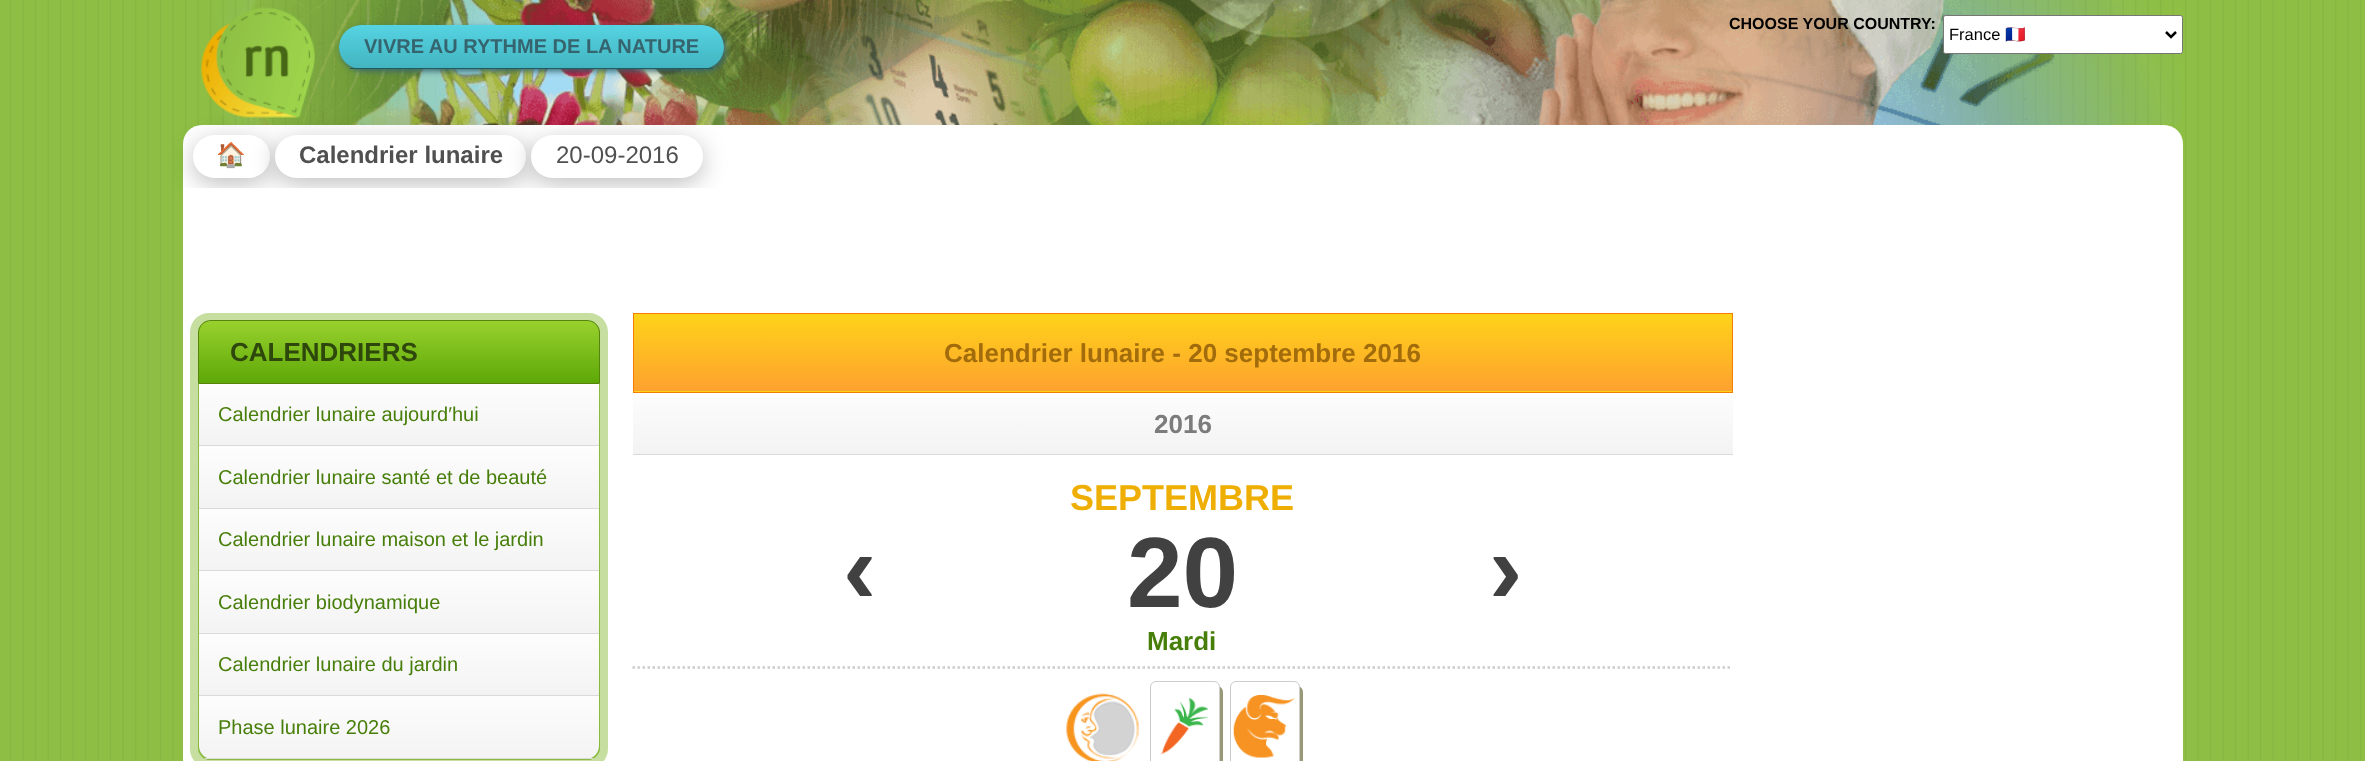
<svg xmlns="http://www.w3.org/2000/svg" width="2365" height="761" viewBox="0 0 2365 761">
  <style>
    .t1 { font: bold 16px Liberation Sans; fill: #000; }
    .t2 { font: 16.5px Liberation Sans; fill: #000; }
    .t3 { font: 16.5px Noto Color Emoji; fill: #000; }
    .t4 { font: bold 20px Liberation Sans; fill: #35646e; }
    .t5 { font: bold 24px Noto Color Emoji; fill: #505050; }
    .t6 { font: bold 24px Liberation Sans; fill: #505050; }
    .t7 { font: 24px Liberation Sans; fill: #505050; }
    .t8 { font: bold 26px Liberation Sans; fill: #2e470c; }
    .t9 { font: 20px Liberation Sans; fill: #477e09; }
    .t10 { font: bold 26px Liberation Sans; fill: #a26c0d; }
    .t11 { font: bold 26px Liberation Sans; fill: #7c7c7c; }
    .t12 { font: bold 36px Liberation Sans; fill: #eeae03; }
    .t13 { font: bold 100px Liberation Sans; fill: #414141; }
    .t14 { font: bold 26px Liberation Sans; fill: #477e09; }
  </style>
  <defs>
    <clipPath id="clip1"><rect x="339" y="25" width="385" height="44" rx="22"/></clipPath>
    <linearGradient id="g1" gradientUnits="userSpaceOnUse" x1="531" y1="25" x2="531" y2="68"><stop offset="0" stop-color="#56d3e2"/><stop offset="1" stop-color="#43b5c1"/></linearGradient>
    <clipPath id="clip2"><path d="M211 320H587C594 320 600 326 600 333V384H198V333C198 326 204 320 211 320Z"/></clipPath>
    <linearGradient id="g2" gradientUnits="userSpaceOnUse" x1="399" y1="321" x2="399" y2="383"><stop offset="0" stop-color="#99d12e"/><stop offset="1" stop-color="#5da807"/></linearGradient>
    <linearGradient id="g3" gradientUnits="userSpaceOnUse" x1="399" y1="384" x2="399" y2="445"><stop offset="0" stop-color="#fdfdfd"/><stop offset="1" stop-color="#f3f3f3"/></linearGradient>
    <linearGradient id="g4" gradientUnits="userSpaceOnUse" x1="399" y1="446" x2="399" y2="508"><stop offset="0" stop-color="#fdfdfd"/><stop offset="1" stop-color="#f3f3f3"/></linearGradient>
    <linearGradient id="g5" gradientUnits="userSpaceOnUse" x1="399" y1="509" x2="399" y2="570"><stop offset="0" stop-color="#fdfdfd"/><stop offset="1" stop-color="#f3f3f3"/></linearGradient>
    <linearGradient id="g6" gradientUnits="userSpaceOnUse" x1="399" y1="571" x2="399" y2="633"><stop offset="0" stop-color="#fdfdfd"/><stop offset="1" stop-color="#f3f3f3"/></linearGradient>
    <linearGradient id="g7" gradientUnits="userSpaceOnUse" x1="399" y1="634" x2="399" y2="695"><stop offset="0" stop-color="#fdfdfd"/><stop offset="1" stop-color="#f3f3f3"/></linearGradient>
    <clipPath id="clip3"><path d="M199 696H599V746C599 753 593 759 586 759H212C205 759 199 753 199 746Z"/></clipPath>
    <linearGradient id="g8" gradientUnits="userSpaceOnUse" x1="399" y1="696" x2="399" y2="758"><stop offset="0" stop-color="#fdfdfd"/><stop offset="1" stop-color="#f3f3f3"/></linearGradient>
    <linearGradient id="g9" gradientUnits="userSpaceOnUse" x1="1183" y1="314" x2="1183" y2="391"><stop offset="0" stop-color="#fed319"/><stop offset="1" stop-color="#fea12f"/></linearGradient>
    <linearGradient id="g10" gradientUnits="userSpaceOnUse" x1="1183" y1="391" x2="1183" y2="469"><stop offset="0" stop-color="#fed319"/><stop offset="1" stop-color="#fea12f"/></linearGradient>
    <linearGradient id="g11" gradientUnits="userSpaceOnUse" x1="1183" y1="392" x2="1183" y2="454"><stop offset="0" stop-color="#fdfdfd"/><stop offset="1" stop-color="#f3f3f3"/></linearGradient>
  </defs>
  <rect width="100%" height="100%" fill="#fff"/>
  <image x="0" y="0" width="2365" height="761" href="images/1.png"/>
  <image x="207" y="0" width="1975" height="125" href="images/2.png"/>
  <image x="201" y="7" width="114" height="111" href="images/3.png"/>
  <text x="1729" y="29" class="t1">CHOOSE YOUR COUNTRY:</text>
  <rect x="1943.5" y="15.5" width="239" height="38" rx="2" fill="#fff" stroke="#767676"/>
  <path d="M2166 32L2171 37L2176 32" fill="none" stroke="#000" stroke-width="2.5"/>
  <text x="1949" y="40" class="t2">France</text>
  <text x="2005" y="40" class="t3">🇫🇷</text>
  <rect x="341" y="28" width="385" height="43" rx="21.5" fill="#35646e" filter="blur(3px)"/>
  <g clip-path="url(#clip1)">
    <path d="M361 25H702C714 25 724 35 724 47V68H339V47C339 35 349 25 361 25Z" fill="url(#g1)"/>
  </g>
  <rect x="350" y="68" width="363" height="1" fill="#225a61"/>
  <text x="364" y="53" class="t4">VIVRE AU RYTHME DE LA NATURE</text>
  <path d="M202 125H2164C2174.5 125 2183 133.5 2183 144V188H183V144C183 133.5 191.5 125 202 125Z" fill="#fff"/>
  <rect x="193" y="141" width="77" height="43" rx="21.5" fill="#00000040" filter="blur(12.5px)"/>
  <rect x="193" y="135" width="77" height="43" rx="21.5" fill="#fff"/>
  <text x="216" y="163" class="t5">🏠</text>
  <rect x="275" y="141" width="251" height="43" rx="21.5" fill="#00000040" filter="blur(12.5px)"/>
  <rect x="275" y="135" width="251" height="43" rx="21.5" fill="#fff"/>
  <text x="299" y="163" class="t6">Calendrier lunaire</text>
  <rect x="531" y="141" width="172" height="43" rx="21.5" fill="#00000040" filter="blur(12.5px)"/>
  <rect x="531" y="135" width="172" height="43" rx="21.5" fill="#fff"/>
  <text x="556" y="163" class="t7">20-09-2016</text>
  <rect x="183" y="188" width="2000" height="125" fill="#fff"/>
  <rect x="183" y="313" width="2000" height="448" fill="#fff"/>
  <rect x="190" y="313" width="418" height="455" rx="19" fill="#c6dfa1"/>
  <g clip-path="url(#clip2)">
    <rect x="198" y="321" width="402" height="62" fill="url(#g2)"/>
  </g>
  <path d="M211 320.5H587C594 320.5 599.5 326 599.5 333V383.5H198.5V333C198.5 326 204 320.5 211 320.5Z" fill="none" stroke="#56850e"/>
  <text x="230" y="361" class="t8">CALENDRIERS</text>
  <path d="M198 384H600V747C600 754 594 760 587 760H211C204 760 198 754 198 747Z" fill="#8aba40"/>
  <path d="M198 384H600V748C600 754 594 760 588 760H210C203 760 198 754 198 748ZM199 384H599V748C599 754 594 759 588 759H210C204 759 199 754 199 748Z" fill="#8aba40" fill-rule="evenodd"/>
  <rect x="199" y="384" width="400" height="61" fill="url(#g3)"/>
  <rect x="199" y="445" width="400" height="1" fill="#dadada"/>
  <text x="218" y="421" class="t9">Calendrier lunaire aujourd′hui</text>
  <rect x="199" y="446" width="400" height="62" fill="url(#g4)"/>
  <rect x="199" y="508" width="400" height="1" fill="#dadada"/>
  <text x="218" y="484" class="t9">Calendrier lunaire santé et de beauté</text>
  <rect x="199" y="509" width="400" height="61" fill="url(#g5)"/>
  <rect x="199" y="570" width="400" height="1" fill="#dadada"/>
  <text x="218" y="546" class="t9">Calendrier lunaire maison et le jardin</text>
  <rect x="199" y="571" width="400" height="62" fill="url(#g6)"/>
  <rect x="199" y="633" width="400" height="1" fill="#dadada"/>
  <text x="218" y="609" class="t9">Calendrier biodynamique</text>
  <rect x="199" y="634" width="400" height="61" fill="url(#g7)"/>
  <rect x="199" y="695" width="400" height="1" fill="#dadada"/>
  <text x="218" y="671" class="t9">Calendrier lunaire du jardin</text>
  <g clip-path="url(#clip3)">
    <rect x="199" y="696" width="400" height="62" fill="url(#g8)"/>
  </g>
  <rect x="205" y="758" width="388" height="1" fill="#dadada"/>
  <text x="218" y="734" class="t9">Phase lunaire 2026</text>
  <rect x="634" y="314" width="1098" height="77" fill="url(#g9)"/>
  <rect x="633" y="391" width="1100" height="1" fill="url(#g10)"/>
  <rect x="633.5" y="313.5" width="1099" height="79" fill="none" stroke="#f27f00"/>
  <text x="944" y="362" class="t10">Calendrier lunaire - 20 septembre 2016</text>
  <rect x="633" y="395" width="1100" height="59" fill="url(#g11)"/>
  <rect x="633" y="454" width="1100" height="1" fill="#dadada"/>
  <text x="1154" y="433" class="t11">2016</text>
  <text x="1070" y="510" class="t12">SEPTEMBRE</text>
  <text x="843" y="603" class="t13">‹</text>
  <text x="1127" y="607" class="t13">20</text>
  <text x="1489" y="603" class="t13">›</text>
  <text x="1147" y="650" class="t14">Mardi</text>
  <path d="M632.5 667.5H1732.5" fill="none" stroke="#ccc" stroke-width="2.5" stroke-dasharray="2.5 2.5"/>
  <image x="1066" y="693" width="73" height="68" href="images/4.png"/>
  <rect x="1153" y="686" width="70" height="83" rx="6" fill="#997" filter="blur(0.5px)"/>
  <rect x="1150.5" y="681.5" width="69" height="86" rx="5.5" fill="#fff" stroke="#ccc"/>
  <image x="1160" y="698" width="49" height="57" href="images/5.png"/>
  <rect x="1233" y="686" width="70" height="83" rx="6" fill="#997" filter="blur(0.5px)"/>
  <rect x="1230.5" y="681.5" width="69" height="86" rx="5.5" fill="#fff" stroke="#ccc"/>
  <image x="1233" y="695" width="62" height="63" href="images/6.png"/>
</svg>
